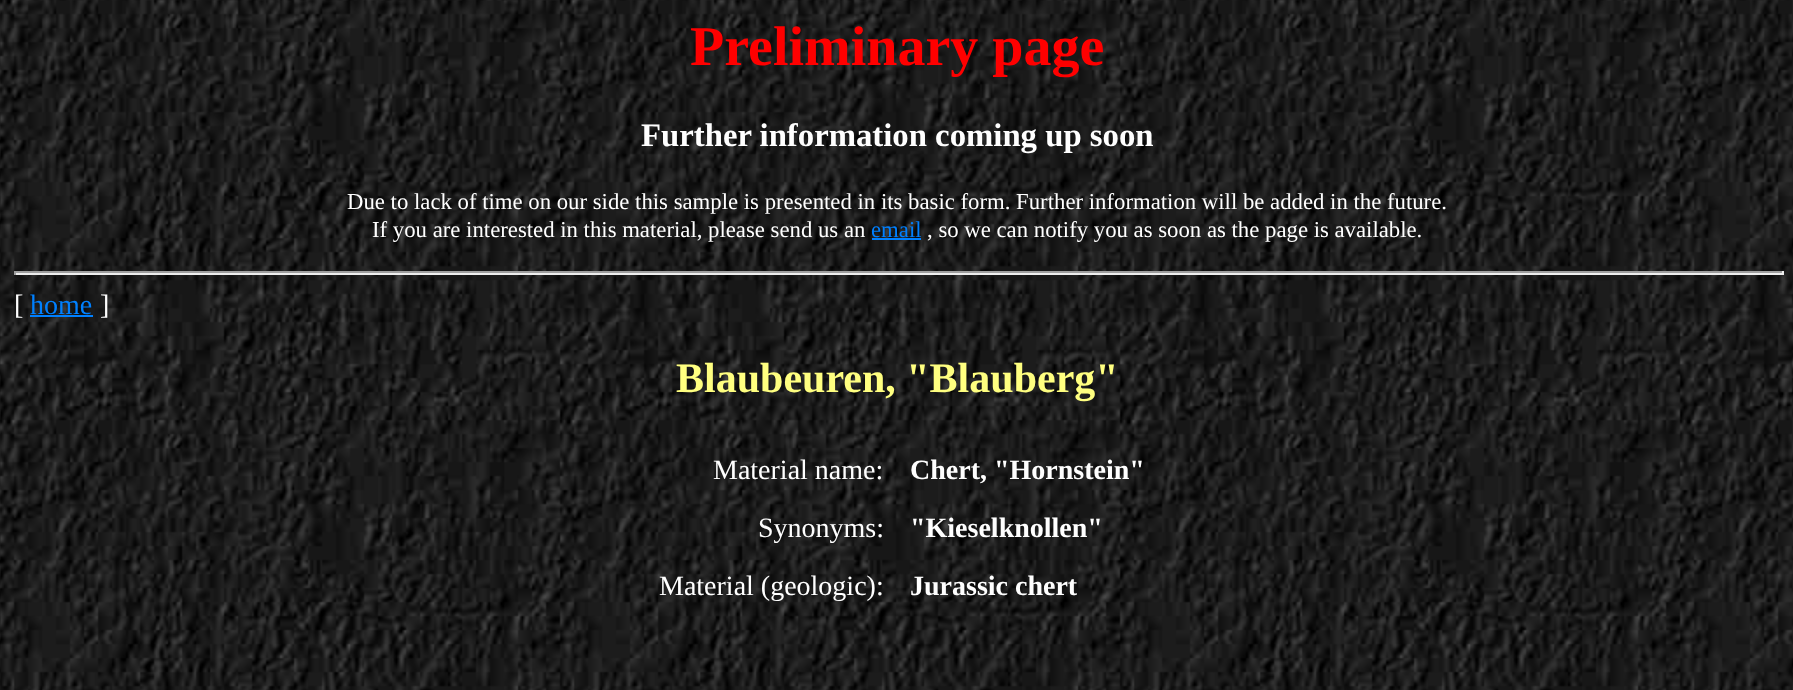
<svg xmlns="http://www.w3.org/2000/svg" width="1793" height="690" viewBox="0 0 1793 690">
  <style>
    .t1 { font: bold 56px Liberation Serif; fill: #f00; }
    .t2 { font: bold 32.75px Liberation Serif; fill: #fff; }
    .t3 { font: 22.75px Liberation Serif; fill: #fff; }
    .t4 { font: 22.75px Liberation Serif; fill: #0080ff; }
    .t5 { font: 28px Liberation Serif; fill: #fff; }
    .t6 { font: 28px Liberation Serif; fill: #0080ff; }
    .t7 { font: bold 42px Liberation Serif; fill: #ffff80; }
    .t8 { font: bold 28px Liberation Serif; fill: #fff; }
  </style>
  <rect width="100%" height="100%" fill="#fff"/>
  <image x="0" y="0" width="1793" height="690" href="images/1.png"/>
  <text x="690" y="65" class="t1">Preliminary page</text>
  <text x="641" y="146" class="t2">Further information coming up soon</text>
  <text x="347" y="209" class="t3">Due to lack of time on our side this sample is presented in its basic form. Further information will be added in the future.</text>
  <text x="372" y="237" class="t3">If you are interested in this material, please send us an</text>
  <text x="871" y="237" class="t4">email</text>
  <rect x="872" y="238" width="49" height="2" fill="#0080ff"/>
  <text x="927" y="237" class="t3">, so we can notify you as soon as the page is available.</text>
  <rect x="14" y="271" width="1769" height="2" fill="#9f9f9f"/>
  <rect x="1782" y="271" width="2" height="4" fill="#eee"/>
  <rect x="14" y="273" width="1769" height="2" fill="#eee"/>
  <rect x="14" y="271" width="2" height="4" fill="#9f9f9f"/>
  <text x="14" y="314" class="t5">[</text>
  <text x="30" y="314" class="t6">home</text>
  <rect x="30" y="315" width="63" height="2" fill="#0080ff"/>
  <text x="100" y="314" class="t5">]</text>
  <text x="676" y="392" class="t7">Blaubeuren, "Blauberg"</text>
  <text x="713" y="479" class="t5">Material name:</text>
  <text x="910" y="479" class="t8">Chert, "Hornstein"</text>
  <text x="758" y="537" class="t5">Synonyms:</text>
  <text x="910" y="537" class="t8">"Kieselknollen"</text>
  <text x="659" y="595" class="t5">Material (geologic):</text>
  <text x="910" y="595" class="t8">Jurassic chert</text>
</svg>
